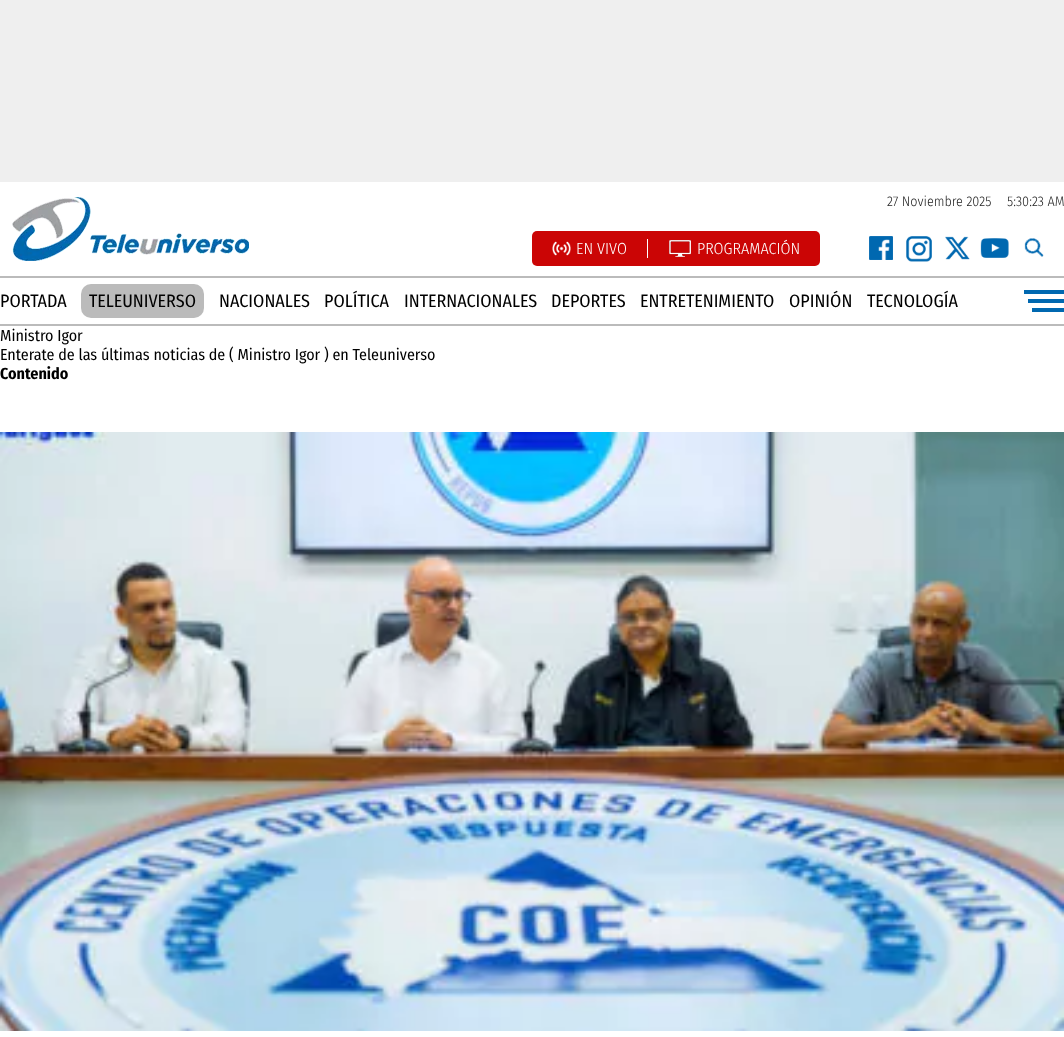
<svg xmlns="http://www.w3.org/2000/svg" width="1064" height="1037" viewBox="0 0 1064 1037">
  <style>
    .t1 { font: 300 14px Fira Sans Condensed; fill: #242424; }
    .t2 { font: 300 16px Fira Sans Condensed; fill: #fff; }
    .t3 { font: 18px Fira Sans Condensed; fill: #000; }
    .t4 { font: 16px Fira Sans Condensed; fill: #000; }
    .t5 { font: bold 16px Fira Sans Condensed; fill: #000; }
  </style>
  <rect width="100%" height="100%" fill="#fff"/>
  <rect x="0" y="0" width="1064" height="182" fill="#efefef"/>
  <image x="12" y="197" width="237" height="64" href="images/1.png"/>
  <text x="887" y="206" class="t1">27 Noviembre 2025</text>
  <text x="1007" y="206" class="t1">5:30:23 AM</text>
  <rect x="532" y="231" width="288" height="35" rx="5" fill="#cb0505"/>
  <rect x="647" y="239" width="1" height="19" fill="#fff"/>
  <image x="552" y="241" width="19" height="15" href="images/2.png"/>
  <text x="576" y="254" class="t2">EN VIVO</text>
  <image x="669" y="240" width="22" height="17" href="images/3.png"/>
  <text x="697" y="254" class="t2">PROGRAMACIÓN</text>
  <image x="869" y="236" width="24" height="24" href="images/4.png"/>
  <image x="906" y="236" width="26" height="26" href="images/5.png"/>
  <image x="945" y="236" width="25" height="24" href="images/6.png"/>
  <image x="980" y="238" width="29" height="20" href="images/7.png"/>
  <image x="1024" y="238" width="20" height="19" href="images/8.png"/>
  <rect x="0" y="276" width="1064" height="2" fill="#bbb"/>
  <rect x="0" y="324" width="1064" height="2" fill="#bbb"/>
  <text x="0" y="307" class="t3">PORTADA</text>
  <rect x="81" y="284" width="123" height="34" rx="10" fill="#bbb"/>
  <text x="89" y="307" class="t3">TELEUNIVERSO</text>
  <text x="219" y="307" class="t3">NACIONALES</text>
  <text x="324" y="307" class="t3">POLÍTICA</text>
  <text x="404" y="307" class="t3">INTERNACIONALES</text>
  <text x="551" y="307" class="t3">DEPORTES</text>
  <text x="640" y="307" class="t3">ENTRETENIMIENTO</text>
  <text x="789" y="307" class="t3">OPINIÓN</text>
  <text x="867" y="307" class="t3">TECNOLOGÍA</text>
  <rect x="1024" y="290" width="40" height="4" fill="#0068b0"/>
  <rect x="1028" y="299" width="36" height="4" fill="#0068b0"/>
  <rect x="1032" y="308" width="32" height="4" fill="#0068b0"/>
  <text x="0" y="341" class="t4">Ministro Igor</text>
  <text x="0" y="360" class="t4">Enterate de las últimas noticias de ( Ministro Igor ) en Teleuniverso</text>
  <text x="0" y="379" class="t5">Contenido</text>
  <image x="0" y="432" width="1064" height="599" href="images/9.png"/>
</svg>
